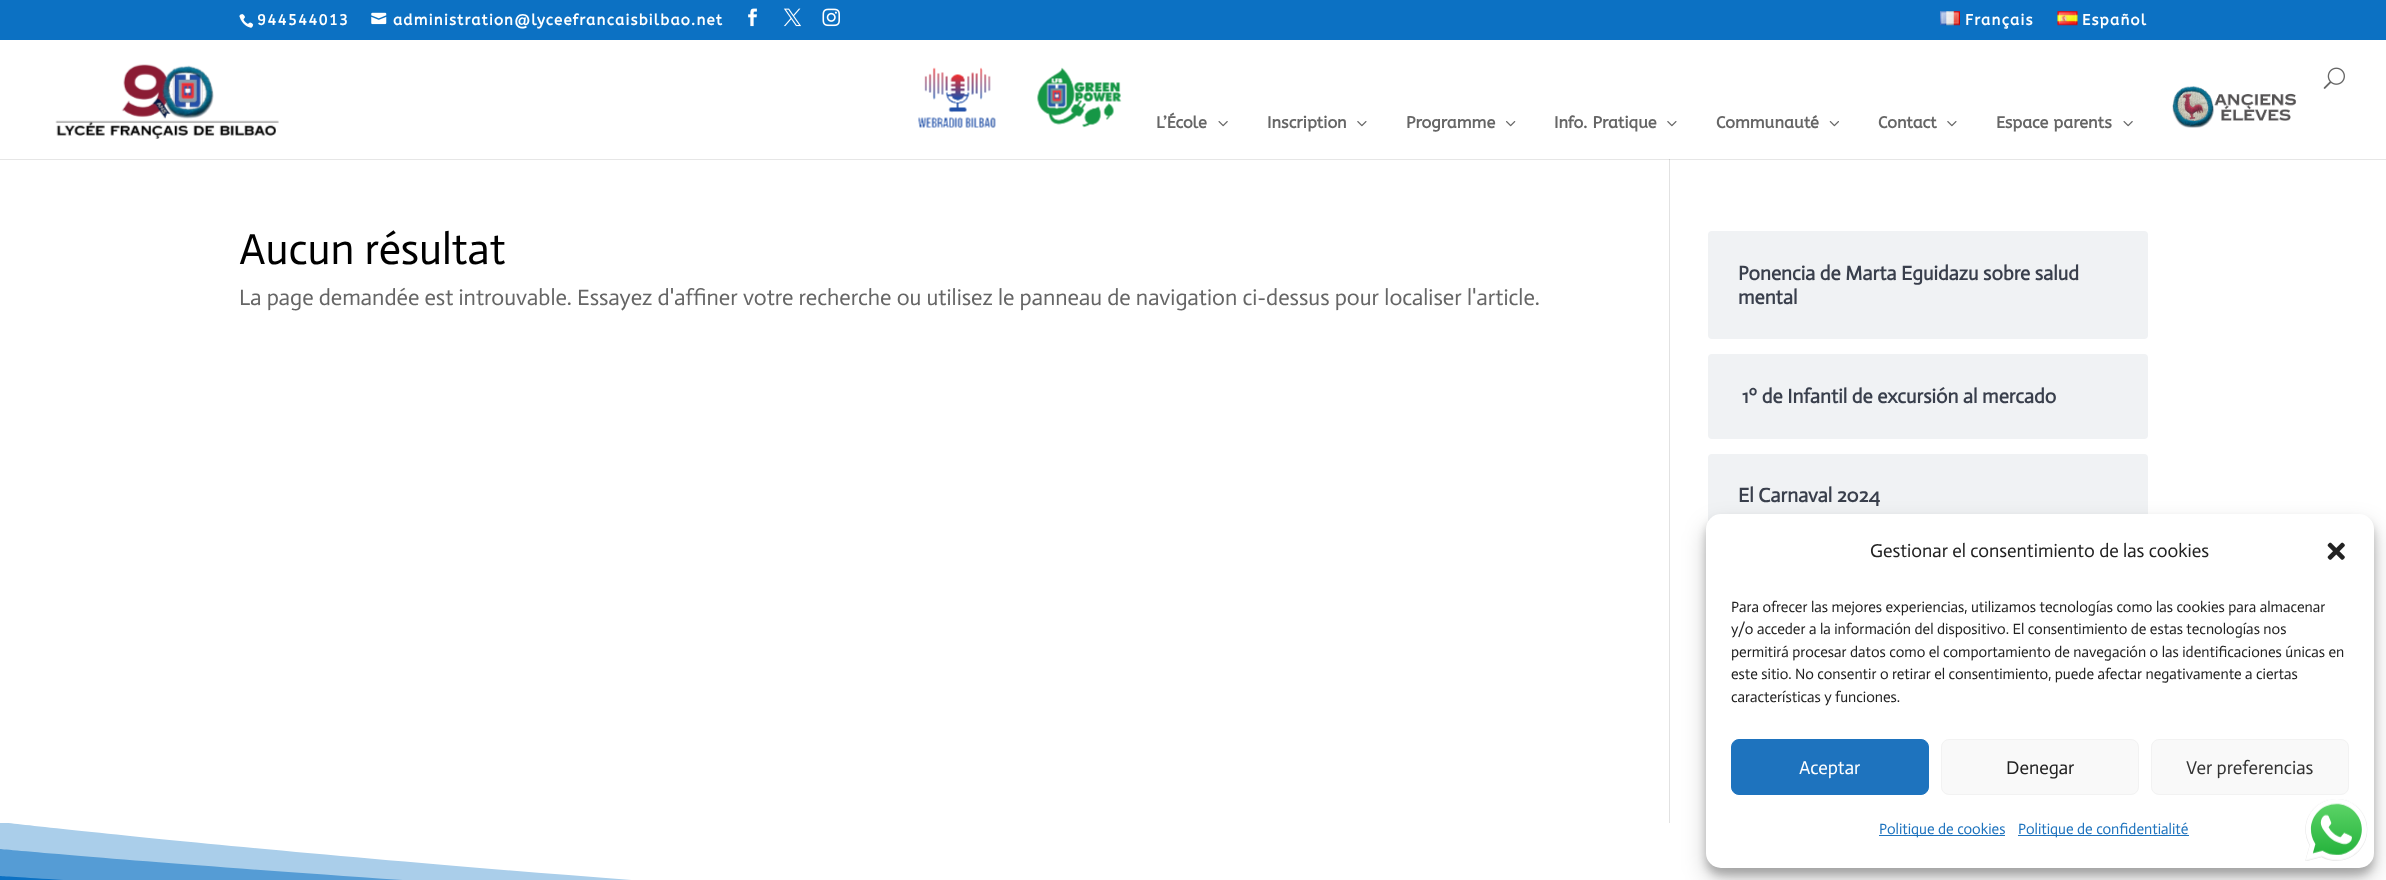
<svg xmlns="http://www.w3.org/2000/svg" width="2386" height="880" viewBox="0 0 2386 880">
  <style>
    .t1 { font: bold 15px ABeeZee; letter-spacing: 1.25px; fill: #fff; }
    .t2 { font: bold 16.25px ABeeZee; fill: #666; }
    .t3 { font: 43.75px Actor; fill: #000; }
    .t4 { font: 22.5px Actor; fill: #666; }
    .t5 { font: bold 20px Actor; fill: #393f4c; }
    .t6 { font: 18.75px Actor; fill: #222; }
    .t7 { font: 15px Actor; fill: #222; }
    .t8 { font: 18.75px Actor; fill: #fff; }
    .t9 { font: 18.75px Actor; fill: #333; }
    .t10 { font: 15px Actor; fill: #1e73be; }
  </style>
  <defs>
    <clipPath id="clip1"><rect x="0" y="823" width="2386" height="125"/></clipPath>
  </defs>
  <rect width="100%" height="100%" fill="#fff"/>
  <rect x="0" y="159" width="2386" height="1" fill="#e6e6e6"/>
  <rect x="0" y="0" width="2386" height="40" fill="#0c71c3"/>
  <image x="239" y="14" width="15" height="14" href="images/1.png"/>
  <text x="257" y="25" class="t1">944544013</text>
  <image x="371" y="12" width="16" height="13" href="images/2.png"/>
  <text x="393" y="25" class="t1">administration@lyceefrancaisbilbao.net</text>
  <image x="748" y="8" width="9" height="19" href="images/3.png"/>
  <image x="783" y="8" width="18" height="19" href="images/4.png"/>
  <image x="822" y="8" width="18" height="19" href="images/5.png"/>
  <image x="1940" y="11" width="20" height="15" href="images/6.png"/>
  <text x="1965" y="25" class="t1">Français</text>
  <image x="2057" y="11" width="21" height="15" href="images/7.png"/>
  <text x="2082" y="25" class="t1">Español</text>
  <image x="55" y="64" width="224" height="75" href="images/8.png"/>
  <image x="2323" y="67" width="22" height="22" href="images/9.png"/>
  <image x="918" y="67" width="78" height="61" href="images/10.png"/>
  <image x="1037" y="67" width="85" height="61" href="images/11.png"/>
  <text x="1156" y="128" class="t2">L’École</text>
  <image x="1218" y="121" width="10" height="6" href="images/12.png"/>
  <text x="1267" y="128" class="t2">Inscription</text>
  <image x="1357" y="121" width="10" height="6" href="images/13.png"/>
  <text x="1406" y="128" class="t2">Programme</text>
  <image x="1506" y="121" width="10" height="6" href="images/14.png"/>
  <text x="1554" y="128" class="t2">Info. Pratique</text>
  <image x="1667" y="121" width="10" height="6" href="images/13.png"/>
  <text x="1716" y="128" class="t2">Communauté</text>
  <image x="1829" y="121" width="10" height="6" href="images/15.png"/>
  <text x="1878" y="128" class="t2">Contact</text>
  <image x="1947" y="121" width="10" height="6" href="images/13.png"/>
  <text x="1996" y="128" class="t2">Espace parents</text>
  <image x="2123" y="121" width="10" height="6" href="images/12.png"/>
  <image x="2172" y="86" width="125" height="42" href="images/16.png"/>
  <rect x="1669" y="159" width="1" height="664" fill="#e2e2e2"/>
  <rect x="1669" y="159" width="1" height="1" fill="#cbcbcb"/>
  <text x="239" y="264" class="t3">Aucun résultat</text>
  <text x="239" y="305" class="t4">La page demandée est introuvable. Essayez d'affiner votre recherche ou utilisez le panneau de navigation ci-dessus pour localiser l'article.</text>
  <rect x="1708" y="231" width="440" height="108" rx="4" fill="#f0f2f4"/>
  <text x="1738" y="280" class="t5">Ponencia de Marta Eguidazu sobre salud</text>
  <text x="1738" y="304" class="t5">mental</text>
  <rect x="1708" y="354" width="440" height="85" rx="4" fill="#f0f2f4"/>
  <text x="1742" y="403" class="t5">1º de Infantil de excursión al mercado</text>
  <rect x="1708" y="454" width="440" height="84" rx="4" fill="#f0f2f4"/>
  <text x="1738" y="502" class="t5">El Carnaval 2024</text>
  <rect x="0" y="876" width="63" height="4" fill="#0c71c3"/>
  <g clip-path="url(#clip1)">
    <path d="M0 822V876C0 876 1068 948 2386 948V822Z" fill="#559cd5"/>
    <path d="M0 822V849C0 849 1068 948 2386 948V822Z" fill="#aaceea"/>
    <path d="M0 822C0 822 1068 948 2386 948V822Z" fill="#fff"/>
  </g>
  <rect x="1706" y="521" width="668" height="354" rx="15" fill="#0000003b" filter="blur(4px)"/>
  <rect x="1706" y="526" width="668" height="354" rx="15" fill="#00000030" filter="blur(12.5px)"/>
  <rect x="1706" y="514" width="668" height="354" rx="15" fill="#fff"/>
  <text x="1870" y="557" class="t6">Gestionar el consentimiento de las cookies</text>
  <image x="2327" y="542" width="18" height="18" href="images/17.png"/>
  <text x="1731" y="612" class="t7">Para ofrecer las mejores experiencias, utilizamos tecnologías como las cookies para almacenar</text>
  <text x="1731" y="634" class="t7">y/o acceder a la información del dispositivo. El consentimiento de estas tecnologías nos</text>
  <text x="1731" y="657" class="t7">permitirá procesar datos como el comportamiento de navegación o las identificaciones únicas en</text>
  <text x="1731" y="679" class="t7">este sitio. No consentir o retirar el consentimiento, puede afectar negativamente a ciertas</text>
  <text x="1731" y="702" class="t7">características y funciones.</text>
  <rect x="1731.5" y="739.5" width="197" height="55" rx="7.5" fill="#1e73be" stroke="#1e73be"/>
  <text x="1799" y="774" class="t8">Aceptar</text>
  <rect x="1941.5" y="739.5" width="197" height="55" rx="7.5" fill="#f9f9f9" stroke="#f2f2f2"/>
  <text x="2006" y="774" class="t6">Denegar</text>
  <rect x="2151.5" y="739.5" width="197" height="55" rx="7.5" fill="#f9f9f9" stroke="#f2f2f2"/>
  <text x="2186" y="774" class="t9">Ver preferencias</text>
  <rect x="1879" y="835" width="126" height="1" fill="#1e73be"/>
  <text x="1879" y="834" class="t10">Politique de cookies</text>
  <rect x="2018" y="835" width="171" height="1" fill="#1e73be"/>
  <text x="2018" y="834" class="t10">Politique de confidentialité</text>
  <image x="2305" y="799" width="63" height="62" href="images/18.png"/>
</svg>
